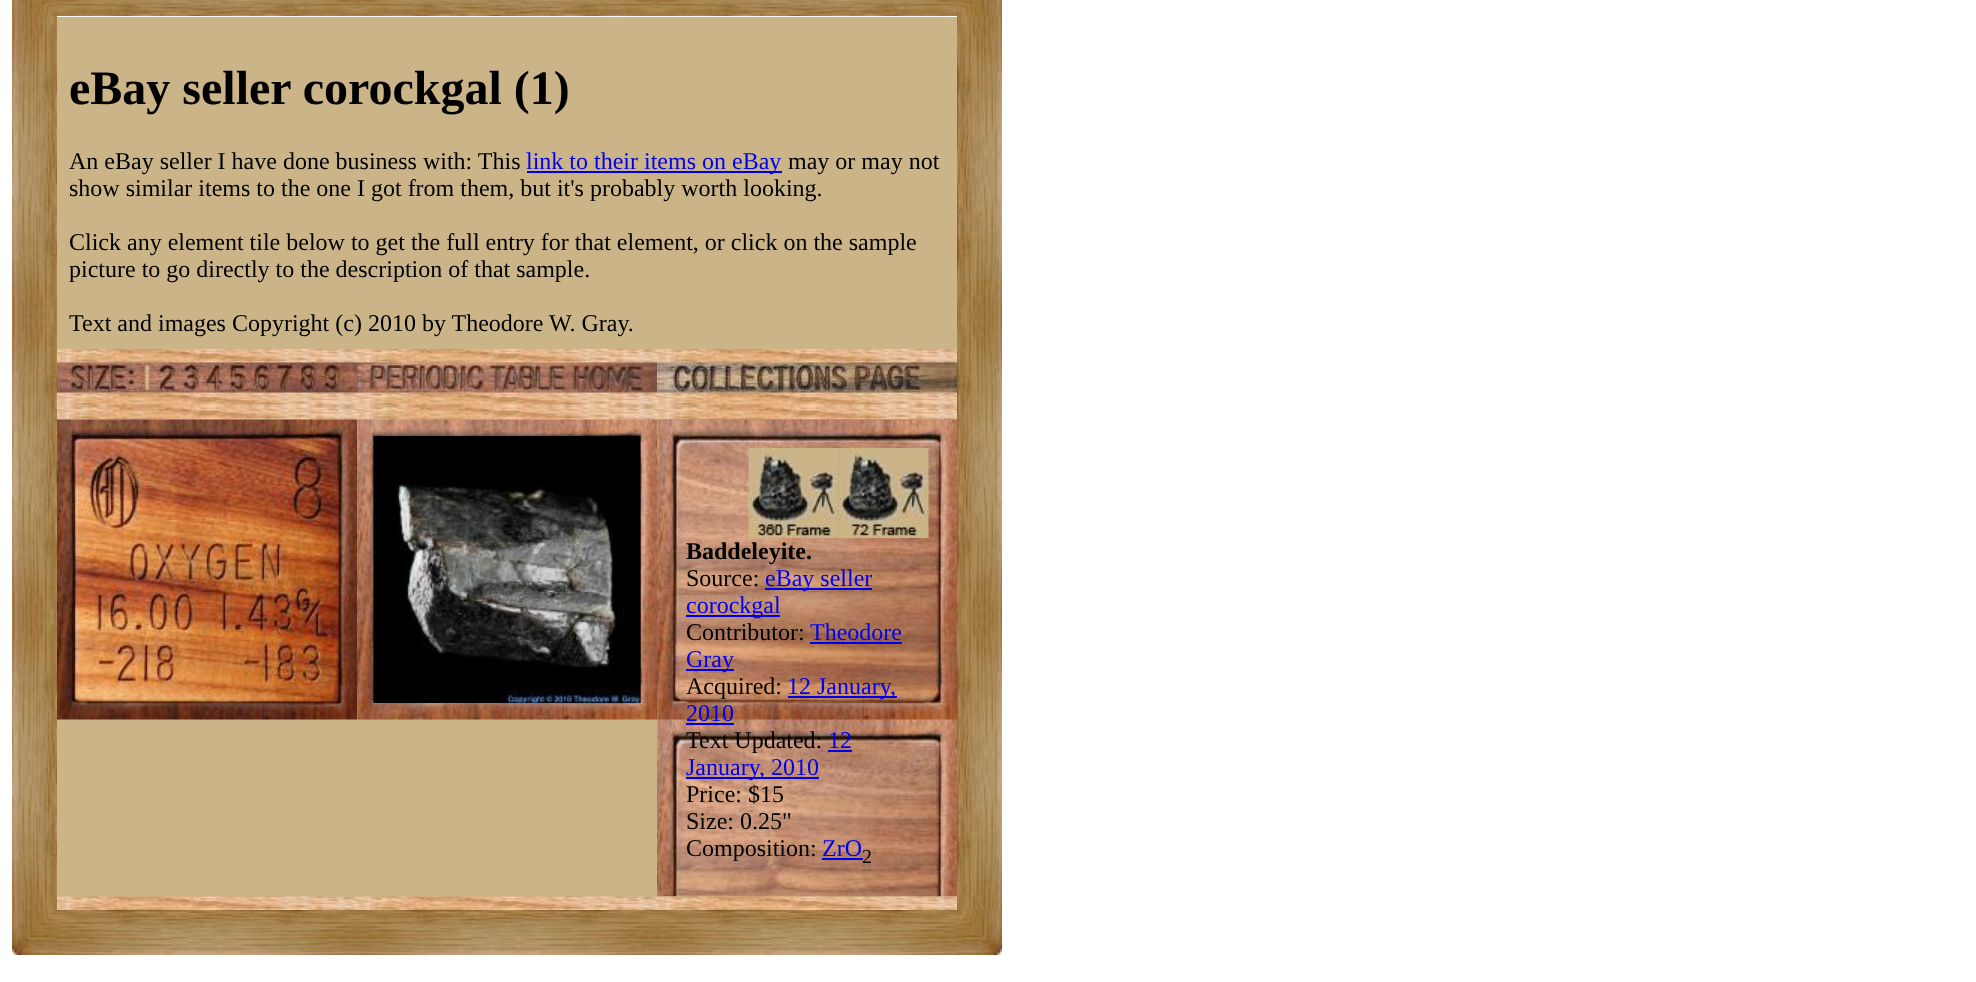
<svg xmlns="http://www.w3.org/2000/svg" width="1976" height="982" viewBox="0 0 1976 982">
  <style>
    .t1 { font: bold 48px Liberation Serif; fill: #000; }
    .t2 { font: 24px Liberation Serif; fill: #000; }
    .t3 { font: 24px Liberation Serif; fill: #00e; }
    .t4 { font: bold 24px Liberation Serif; fill: #000; }
    .t5 { font: 20px Liberation Serif; fill: #000; }
  </style>
  <rect width="100%" height="100%" fill="#fff"/>
  <image x="12" y="0" width="45" height="16" href="images/1.png"/>
  <image x="57" y="0" width="900" height="16" href="images/2.png"/>
  <image x="957" y="0" width="45" height="16" href="images/3.png"/>
  <image x="12" y="16" width="45" height="894" href="images/4.png"/>
  <rect x="57" y="17" width="900" height="880" fill="#cbb488"/>
  <text x="69" y="104" class="t1">eBay seller corockgal (1)</text>
  <text x="69" y="169" class="t2">An eBay seller I have done business with: This</text>
  <rect x="527" y="171" width="255" height="2" fill="#00e"/>
  <text x="526" y="169" class="t3">link to their items on eBay</text>
  <text x="788" y="169" class="t2">may or may not</text>
  <text x="69" y="196" class="t2">show similar items to the one I got from them, but it's probably worth looking.</text>
  <text x="69" y="250" class="t2">Click any element tile below to get the full entry for that element, or click on the sample</text>
  <text x="69" y="277" class="t2">picture to go directly to the description of that sample.</text>
  <text x="69" y="331" class="t2">Text and images Copyright (c) 2010 by Theodore W. Gray.</text>
  <image x="57" y="349" width="900" height="14" href="images/5.png"/>
  <image x="57" y="392" width="900" height="14" href="images/9.png"/>
  <image x="57" y="362" width="300" height="31" href="images/6.png"/>
  <image x="357" y="362" width="300" height="31" href="images/7.png"/>
  <image x="657" y="362" width="300" height="31" href="images/8.png"/>
  <image x="57" y="406" width="900" height="14" href="images/5.png"/>
  <image x="57" y="419" width="300" height="301" href="images/10.png"/>
  <image x="357" y="419" width="300" height="301" href="images/11.png"/>
  <image x="373" y="436" width="268" height="267" href="images/12.png"/>
  <image x="657" y="419" width="300" height="478" href="images/13.png"/>
  <image x="838" y="448" width="91" height="90" href="images/15.png"/>
  <image x="748" y="448" width="91" height="90" href="images/14.png"/>
  <text x="686" y="559" class="t4">Baddeleyite.</text>
  <text x="686" y="586" class="t2">Source:</text>
  <rect x="765" y="588" width="107" height="2" fill="#00e"/>
  <text x="765" y="586" class="t3">eBay seller</text>
  <rect x="686" y="615" width="94" height="2" fill="#00e"/>
  <text x="686" y="613" class="t3">corockgal</text>
  <text x="686" y="640" class="t2">Contributor:</text>
  <text x="810" y="640" class="t3">Theodore</text>
  <rect x="810" y="642" width="92" height="2" fill="#00e"/>
  <rect x="686" y="669" width="48" height="2" fill="#00e"/>
  <text x="686" y="667" class="t3">Gray</text>
  <text x="686" y="694" class="t2">Acquired:</text>
  <rect x="788" y="696" width="109" height="2" fill="#00e"/>
  <text x="787" y="694" class="t3">12 January,</text>
  <text x="686" y="721" class="t3">2010</text>
  <rect x="686" y="723" width="48" height="2" fill="#00e"/>
  <text x="686" y="748" class="t2">Text Updated:</text>
  <text x="828" y="748" class="t3">12</text>
  <rect x="828" y="750" width="24" height="2" fill="#00e"/>
  <rect x="686" y="777" width="133" height="2" fill="#00e"/>
  <text x="686" y="775" class="t3">January, 2010</text>
  <text x="686" y="802" class="t2">Price: $15</text>
  <text x="686" y="829" class="t2">Size: 0.25"</text>
  <text x="686" y="856" class="t2">Composition:</text>
  <text x="822" y="856" class="t3">ZrO</text>
  <rect x="822" y="858" width="41" height="2" fill="#00e"/>
  <text x="862" y="863" class="t5">2</text>
  <image x="57" y="896" width="900" height="14" href="images/16.png"/>
  <image x="957" y="16" width="45" height="894" href="images/17.png"/>
  <image x="12" y="910" width="45" height="45" href="images/18.png"/>
  <image x="57" y="910" width="900" height="45" href="images/19.png"/>
  <image x="957" y="910" width="45" height="45" href="images/20.png"/>
</svg>
